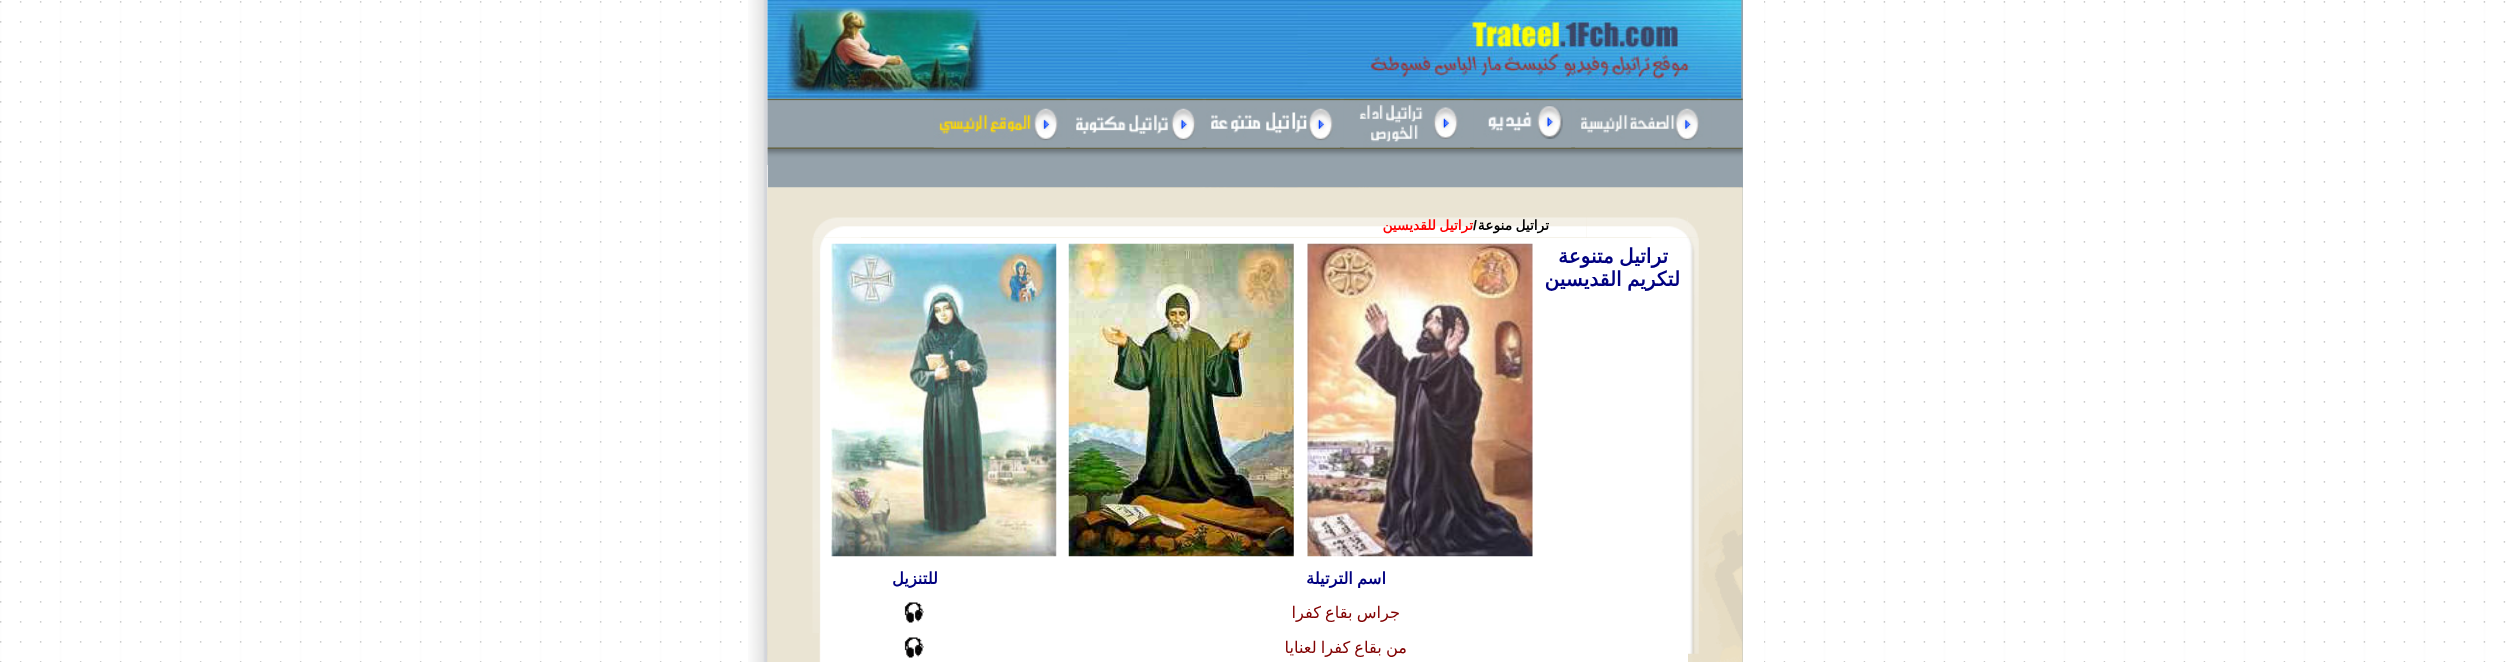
<svg xmlns="http://www.w3.org/2000/svg" width="2510" height="662" viewBox="0 0 2510 662">
  <style>
    .t1 { font: bold 13.75px DejaVu Sans; direction: rtl; fill: #000; }
    .t2 { font: bold 13.75px Liberation Sans; fill: #000; }
    .t3 { font: bold 13.75px DejaVu Sans; direction: rtl; fill: #f00; }
    .t4 { font: bold 20px DejaVu Sans; direction: rtl; fill: #000080; }
    .t5 { font: bold 16.25px DejaVu Sans; direction: rtl; fill: #000080; }
    .t6 { font: 16.25px DejaVu Sans; direction: rtl; fill: #800000; }
  </style>
  <rect width="100%" height="100%" fill="#fff"/>
  <image x="1764" y="1" width="742" height="661" href="images/1.png"/>
  <rect x="768" y="0" width="975" height="662" fill="#95a2ab"/>
  <image x="748" y="0" width="20" height="662" href="images/27.png"/>
  <image x="767" y="98" width="976" height="50" href="images/3.png"/>
  <image x="767" y="147" width="976" height="18" href="images/11.png"/>
  <image x="1711" y="98" width="32" height="50" href="images/4.png"/>
  <image x="1575" y="98" width="133" height="50" href="images/5.png"/>
  <image x="1473" y="98" width="99" height="50" href="images/6.png"/>
  <image x="1343" y="98" width="127" height="50" href="images/7.png"/>
  <image x="1206" y="98" width="134" height="50" href="images/8.png"/>
  <image x="1070" y="98" width="133" height="50" href="images/9.png"/>
  <image x="933" y="98" width="134" height="50" href="images/10.png"/>
  <image x="767" y="0" width="975" height="99" href="images/2.png"/>
  <image x="767" y="187" width="976" height="475" href="images/12.png"/>
  <image x="925" y="217" width="662" height="21" href="images/16.png"/>
  <image x="1586" y="217" width="102" height="21" href="images/14.png"/>
  <image x="1651" y="217" width="37" height="21" href="images/15.png"/>
  <image x="1687" y="222" width="11" height="16" href="images/13.png"/>
  <text x="1549" y="230" word-spacing="-1" class="t1">تراتيل منوعة</text>
  <text x="1473" y="230" class="t2">/</text>
  <text x="1473" y="230" word-spacing="-1" class="t3">تراتيل للقديسين</text>
  <image x="825" y="217" width="100" height="21" href="images/17.png"/>
  <image x="825" y="217" width="36" height="21" href="images/18.png"/>
  <image x="819" y="237" width="6" height="425" href="images/25.png"/>
  <image x="813" y="221" width="12" height="17" href="images/19.png"/>
  <rect x="825" y="238" width="863" height="424" fill="#fff"/>
  <image x="1687" y="237" width="12" height="417" href="images/20.png"/>
  <text x="1668" y="263" word-spacing="-1" class="t4">تراتيل متنوعة</text>
  <text x="1680" y="286" word-spacing="-1" class="t4">لتكريم القديسين</text>
  <image x="1307" y="243" width="226" height="314" href="images/21.png"/>
  <image x="1068" y="243" width="226" height="314" href="images/22.png"/>
  <image x="831" y="243" width="226" height="314" href="images/23.png"/>
  <text x="1386" y="584" word-spacing="-1" class="t5">اسم الترتيلة</text>
  <text x="938" y="584" class="t5">للتنزيل</text>
  <text x="1400" y="618" word-spacing="-1" class="t6">جراس بقاع كفرا</text>
  <image x="904" y="602" width="20" height="21" href="images/24.png"/>
  <text x="1407" y="653" word-spacing="-1" class="t6">من بقاع كفرا لعنايا</text>
  <image x="904" y="637" width="20" height="21" href="images/24.png"/>
  <image x="812" y="237" width="13" height="396" href="images/26.png"/>
  <image x="0" y="1" width="742" height="661" href="images/28.png"/>
</svg>
